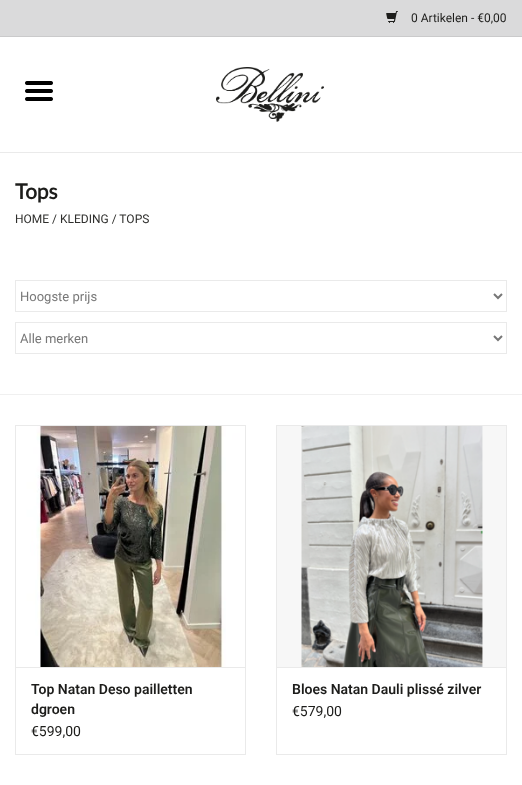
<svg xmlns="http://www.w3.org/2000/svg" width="522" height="785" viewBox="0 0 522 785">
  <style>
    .t1 { font: 12px Roboto; fill: #1d1d1b; }
    .t2 { font: bold 21px Lato; fill: #1d1d1b; }
    .t3 { font: 12px Roboto; fill: #2f2f2d; }
    .t4 { font: 13px Roboto; fill: #777; }
    .t5 { font: 600 14px Roboto; fill: #1d1d1b; }
    .t6 { font: 14px Roboto; fill: #1d1d1b; }
  </style>
  <rect width="100%" height="100%" fill="#fff"/>
  <rect x="0" y="0" width="522" height="36" fill="#dadadb"/>
  <rect x="0" y="36" width="522" height="1" fill="#cacacb"/>
  <image x="386" y="11" width="12" height="12" href="images/1.png"/>
  <text x="411" y="22" class="t1">0 Artikelen - €0,00</text>
  <rect x="0" y="152" width="522" height="1" fill="#eaeaea"/>
  <image x="216" y="67" width="108" height="55" href="images/2.png"/>
  <image x="25" y="81" width="28" height="20" href="images/3.png"/>
  <text x="15" y="199" class="t2">Tops</text>
  <text x="15" y="223" class="t3">HOME / KLEDING / TOPS</text>
  <rect x="0" y="394" width="522" height="1" fill="#f0f0f0"/>
  <rect x="15.5" y="280.5" width="491" height="31" fill="none" stroke="#eaeaea"/>
  <path d="M494 294L498 298L502 294" fill="none" stroke="#777" stroke-width="2"/>
  <text x="20" y="301" class="t4">Hoogste prijs</text>
  <rect x="15.5" y="322.5" width="491" height="31" fill="none" stroke="#eaeaea"/>
  <path d="M494 336L498 340L502 336" fill="none" stroke="#777" stroke-width="2"/>
  <text x="20" y="343" class="t4">Alle merken</text>
  <rect x="15" y="425" width="231" height="1" fill="#eaeaea"/>
  <rect x="245" y="425" width="1" height="242" fill="#eaeaea"/>
  <rect x="15" y="425" width="1" height="242" fill="#eaeaea"/>
  <image x="16" y="426" width="229" height="241" href="images/4.png"/>
  <rect x="15.5" y="667.5" width="230" height="87" fill="none" stroke="#eaeaea"/>
  <text x="31" y="694" class="t5">Top Natan Deso pailletten</text>
  <text x="31" y="714" class="t5">dgroen</text>
  <text x="31" y="736" class="t6">€599,00</text>
  <rect x="277" y="426" width="229" height="241" fill="#f7f7f7"/>
  <rect x="276" y="425" width="231" height="1" fill="#eaeaea"/>
  <rect x="506" y="425" width="1" height="242" fill="#eaeaea"/>
  <rect x="276" y="425" width="1" height="242" fill="#eaeaea"/>
  <image x="301" y="426" width="182" height="241" href="images/5.png"/>
  <rect x="276.5" y="667.5" width="230" height="87" fill="none" stroke="#eaeaea"/>
  <text x="292" y="694" class="t5">Bloes Natan Dauli plissé zilver</text>
  <text x="292" y="716" class="t6">€579,00</text>
</svg>
